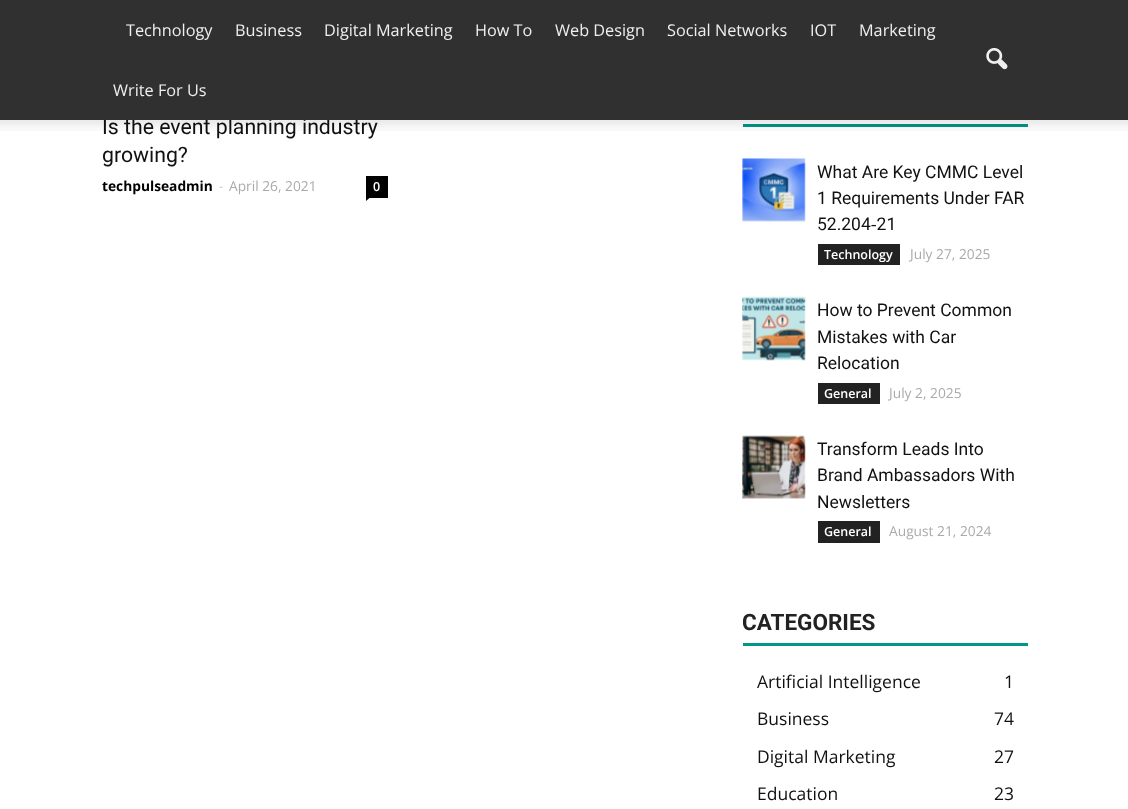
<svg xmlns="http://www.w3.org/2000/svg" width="1128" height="809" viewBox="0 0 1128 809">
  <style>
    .t1 { font: 21.25px Roboto; fill: #111; }
    .t2 { font: 16.25px Open Sans; fill: #efefef; }
    .t3 { font: bold 13.75px Open Sans; fill: #000; }
    .t4 { font: 13.75px Open Sans; fill: #ccc; }
    .t5 { font: 13.75px Open Sans; fill: #aaa; }
    .t6 { font: 600 12.5px Open Sans; fill: #fff; }
    .t7 { font: 17.5px Roboto; fill: #111; }
    .t8 { font: bold 22.5px Roboto; fill: #222; }
    .t9 { font: 17.5px Open Sans; fill: #111; }
  </style>
  <defs>
    <clipPath id="clip1"><rect x="743" y="603" width="285" height="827"/></clipPath>
  </defs>
  <rect width="100%" height="100%" fill="#fff"/>
  <text x="102" y="134" class="t1">Is the event planning industry</text>
  <rect x="0" y="0" width="1128" height="120" fill="#303030"/>
  <text x="126" y="36" class="t2">Technology</text>
  <text x="235" y="36" class="t2">Business</text>
  <text x="324" y="36" class="t2">Digital Marketing</text>
  <text x="475" y="36" class="t2">How To</text>
  <text x="555" y="36" class="t2">Web Design</text>
  <text x="667" y="36" class="t2">Social Networks</text>
  <text x="810" y="36" class="t2">IOT</text>
  <text x="859" y="36" class="t2">Marketing</text>
  <text x="113" y="96" class="t2">Write For Us</text>
  <image x="986" y="47" width="22" height="23" href="images/1.png"/>
  <rect x="743" y="124" width="285" height="3" fill="#009688"/>
  <image x="0" y="120" width="1128" height="11" href="images/2.png"/>
  <text x="102" y="162" class="t1">growing?</text>
  <text x="102" y="191" class="t3">techpulseadmin</text>
  <text x="219" y="191" class="t4">-</text>
  <text x="229" y="191" class="t5">April 26, 2021</text>
  <rect x="366" y="176" width="22" height="22" fill="#000"/>
  <text x="373" y="191" class="t6">0</text>
  <path d="M366 197.5H370L366 201Z" fill="#000"/>
  <image x="742" y="158" width="64" height="64" href="images/3.png"/>
  <text x="817" y="178" class="t7">What Are Key CMMC Level</text>
  <text x="817" y="204" class="t7">1 Requirements Under FAR</text>
  <text x="817" y="230" class="t7">52.204‑21</text>
  <rect x="818" y="244" width="82" height="21" fill="#222"/>
  <text x="824" y="259" class="t6">Technology</text>
  <text x="910" y="259" class="t5">July 27, 2025</text>
  <image x="742" y="296" width="64" height="65" href="images/4.png"/>
  <text x="817" y="316" class="t7">How to Prevent Common</text>
  <text x="817" y="343" class="t7">Mistakes with Car</text>
  <text x="817" y="369" class="t7">Relocation</text>
  <rect x="818" y="383" width="62" height="21" fill="#222"/>
  <text x="824" y="398" class="t6">General</text>
  <text x="889" y="398" class="t5">July 2, 2025</text>
  <image x="742" y="435" width="64" height="64" href="images/5.png"/>
  <text x="817" y="455" class="t7">Transform Leads Into</text>
  <text x="817" y="481" class="t7">Brand Ambassadors With</text>
  <text x="817" y="508" class="t7">Newsletters</text>
  <rect x="818" y="521" width="62" height="22" fill="#222"/>
  <text x="824" y="536" class="t6">General</text>
  <text x="889" y="536" class="t5">August 21, 2024</text>
  <rect x="743" y="643" width="285" height="3" fill="#009688"/>
  <g clip-path="url(#clip1)">
    <text x="742" y="630" class="t8">CATEGORIES</text>
  </g>
  <text x="757" y="688" class="t9">Artificial Intelligence</text>
  <text x="1004" y="688" class="t9">1</text>
  <text x="757" y="725" class="t9">Business</text>
  <text x="994" y="725" class="t9">74</text>
  <text x="757" y="763" class="t9">Digital Marketing</text>
  <text x="994" y="763" class="t9">27</text>
  <text x="757" y="800" class="t9">Education</text>
  <text x="994" y="800" class="t9">23</text>
</svg>
